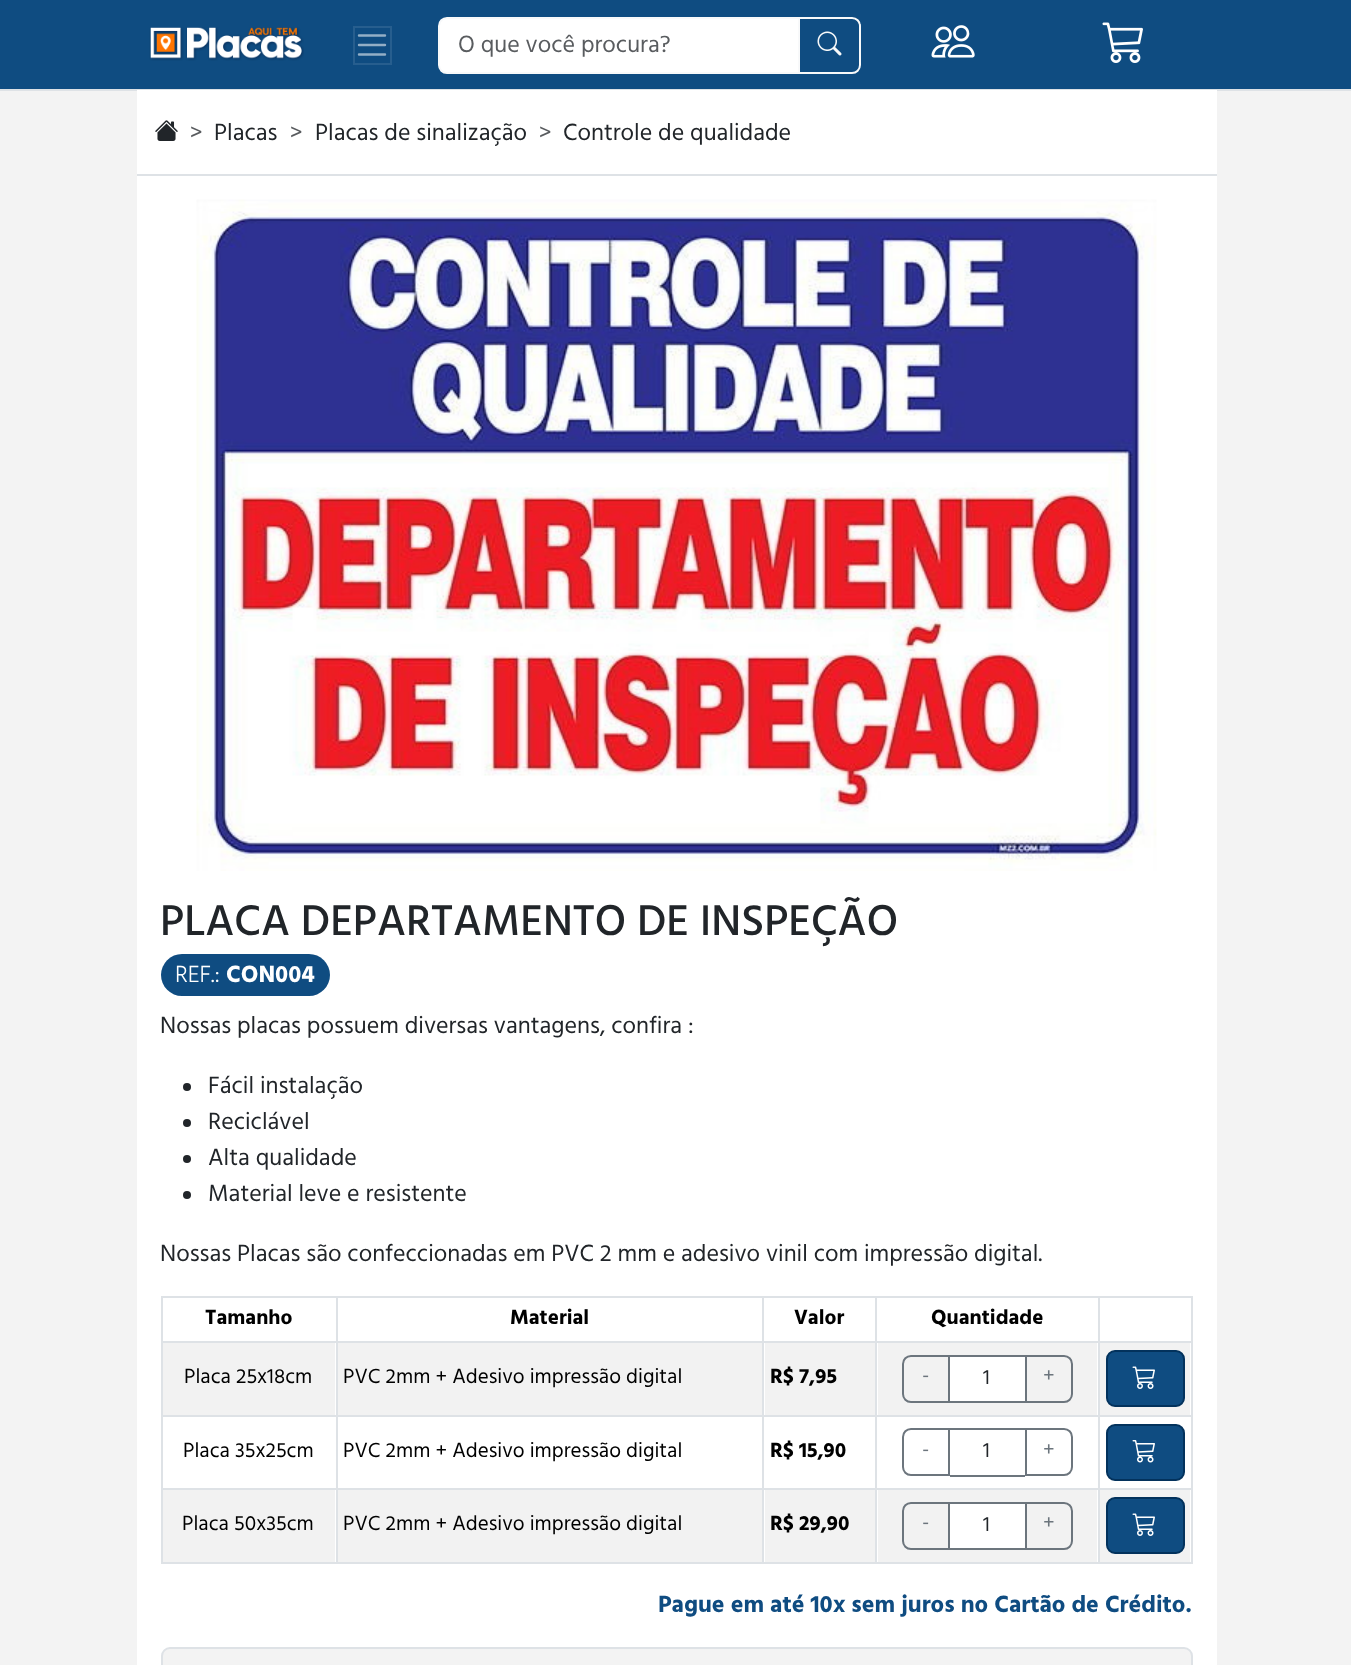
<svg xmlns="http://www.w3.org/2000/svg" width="1351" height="1665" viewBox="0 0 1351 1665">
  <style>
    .t1 { font: 24px Hind Madurai; fill: #595c5f; }
    .t2 { font: 24px Hind Madurai; fill: #212529; }
    .t3 { font: 500 44px Hind Madurai; fill: #212529; }
    .t4 { font: 300 24px Hind Madurai; fill: #fff; }
    .t5 { font: bold 24px Hind Madurai; fill: #fff; }
    .t6 { font: bold 21px Hind Madurai; fill: #000; }
    .t7 { font: 21px Hind Madurai; fill: #000; }
    .t8 { font: 21px Hind Madurai; fill: #6c757d; }
    .t9 { font: 21px Hind Madurai; fill: #212529; }
    .t10 { font: bold 24px Hind Madurai; fill: #0f4c81; }
  </style>
  <rect width="100%" height="100%" fill="#f3f3f3"/>
  <rect x="0" y="0" width="1351" height="89" fill="#0f4c81"/>
  <image x="149" y="27" width="155" height="34" href="images/1.png"/>
  <rect x="354" y="27" width="37" height="37" fill="none" stroke="#275e8e" stroke-width="2"/>
  <path d="M359 35.5H385M359 45H385M359 54.5H385" fill="none" stroke="#93aec6" stroke-width="2.4" stroke-linecap="round"/>
  <path d="M447 18H799V73H447C442.5 73 439 69.5 439 65V26C439 21.5 442.5 18 447 18Z" fill="#fff" stroke="#f8f9fa" stroke-width="2"/>
  <text x="458" y="52" class="t1">O que você procura?</text>
  <path d="M799 18H852C856.5 18 860 21.5 860 26V65C860 69.5 856.5 73 852 73H799Z" fill="none" stroke="#f8f9fa" stroke-width="2"/>
  <image x="817" y="31" width="25" height="25" href="images/2.png"/>
  <image x="931" y="25" width="44" height="33" href="images/3.png"/>
  <image x="1102" y="22" width="41" height="41" href="images/4.png"/>
  <rect x="0" y="89" width="1351" height="2" fill="#dee2e6"/>
  <rect x="137" y="90" width="1080" height="84" fill="#fff"/>
  <rect x="137" y="174" width="1080" height="2" fill="#dee2e6"/>
  <image x="155" y="120" width="23" height="21" href="images/5.png"/>
  <text x="190" y="140" class="t1">&gt;</text>
  <text x="214" y="140" class="t2">Placas</text>
  <text x="290" y="140" class="t1">&gt;</text>
  <text x="315" y="140" class="t2">Placas de sinalização</text>
  <text x="539" y="140" class="t1">&gt;</text>
  <text x="563" y="140" class="t2">Controle de qualidade</text>
  <rect x="137" y="176" width="1080" height="1489" fill="#fff"/>
  <image x="196" y="199" width="961" height="672" href="images/6.png"/>
  <text x="160" y="935" class="t3">PLACA DEPARTAMENTO DE INSPEÇÃO</text>
  <rect x="161" y="954" width="169" height="42" rx="21" fill="#0f4c81"/>
  <text x="175" y="982" class="t4">REF.:</text>
  <text x="226" y="982" class="t5">CON004</text>
  <text x="160" y="1033" class="t2">Nossas placas possuem diversas vantagens, confira :</text>
  <circle cx="187" cy="1087" r="4" fill="#212529"/>
  <text x="208" y="1093" class="t2">Fácil instalação</text>
  <circle cx="187" cy="1123" r="4" fill="#212529"/>
  <text x="208" y="1129" class="t2">Reciclável</text>
  <circle cx="187" cy="1159" r="4" fill="#212529"/>
  <text x="208" y="1165" class="t2">Alta qualidade</text>
  <circle cx="187" cy="1195" r="4" fill="#212529"/>
  <text x="208" y="1201" class="t2">Material leve e resistente</text>
  <text x="160" y="1261" class="t2">Nossas Placas são confeccionadas em PVC 2 mm e adesivo vinil com impressão digital.</text>
  <rect x="161" y="1296" width="1032" height="2" fill="#dee2e6"/>
  <text x="205" y="1324" class="t6">Tamanho</text>
  <text x="510" y="1324" class="t6">Material</text>
  <text x="794" y="1324" class="t6">Valor</text>
  <text x="931" y="1324" class="t6">Quantidade</text>
  <rect x="161" y="1341" width="1032" height="2" fill="#dee2e6"/>
  <rect x="163" y="1343" width="172" height="72" fill="#f2f2f2"/>
  <text x="184" y="1383" class="t7">Placa 25x18cm</text>
  <rect x="338" y="1343" width="424" height="72" fill="#f2f2f2"/>
  <text x="343" y="1383" class="t7">PVC 2mm + Adesivo impressão digital</text>
  <rect x="765" y="1343" width="110" height="72" fill="#f2f2f2"/>
  <text x="770" y="1383" class="t6">R$ 7,95</text>
  <rect x="878" y="1343" width="219" height="72" fill="#f2f2f2"/>
  <path d="M911 1356H949V1402H911C906.5 1402 903 1398.5 903 1394V1364C903 1359.5 906.5 1356 911 1356Z" fill="none" stroke="#6c757d" stroke-width="2"/>
  <text x="922" y="1382" class="t8">-</text>
  <rect x="950" y="1357" width="75" height="44" fill="#fff"/>
  <rect x="950" y="1355" width="75" height="2" fill="#6c757d"/>
  <rect x="950" y="1401" width="75" height="2" fill="#6c757d"/>
  <text x="983" y="1384" class="t9">1</text>
  <path d="M1026 1356H1064C1068.5 1356 1072 1359.5 1072 1364V1394C1072 1398.5 1068.5 1402 1064 1402H1026Z" fill="none" stroke="#6c757d" stroke-width="2"/>
  <text x="1043" y="1382" class="t8">+</text>
  <rect x="1100" y="1343" width="90" height="72" fill="#f2f2f2"/>
  <rect x="1107" y="1351" width="77" height="55" rx="8" fill="#0f4c81" stroke="#03325c" stroke-width="2"/>
  <image x="1132" y="1366" width="23" height="23" href="images/7.png"/>
  <rect x="161" y="1415" width="1032" height="2" fill="#dee2e6"/>
  <text x="183" y="1457" class="t7">Placa 35x25cm</text>
  <text x="343" y="1457" class="t7">PVC 2mm + Adesivo impressão digital</text>
  <text x="770" y="1457" class="t6">R$ 15,90</text>
  <path d="M911 1429H949V1475H911C906.5 1475 903 1471.5 903 1467V1437C903 1432.5 906.5 1429 911 1429Z" fill="none" stroke="#6c757d" stroke-width="2"/>
  <text x="922" y="1456" class="t8">-</text>
  <rect x="950" y="1428" width="75" height="2" fill="#6c757d"/>
  <rect x="950" y="1475" width="75" height="2" fill="#6c757d"/>
  <text x="983" y="1457" class="t9">1</text>
  <path d="M1026 1429H1064C1068.5 1429 1072 1432.5 1072 1437V1467C1072 1471.5 1068.5 1475 1064 1475H1026Z" fill="none" stroke="#6c757d" stroke-width="2"/>
  <text x="1043" y="1456" class="t8">+</text>
  <rect x="1107" y="1425" width="77" height="55" rx="8" fill="#0f4c81" stroke="#03325c" stroke-width="2"/>
  <image x="1132" y="1440" width="23" height="23" href="images/8.png"/>
  <rect x="161" y="1488" width="1032" height="2" fill="#dee2e6"/>
  <rect x="161" y="1562" width="1032" height="2" fill="#dee2e6"/>
  <rect x="163" y="1490" width="172" height="72" fill="#f2f2f2"/>
  <rect x="161" y="1296" width="2" height="267" fill="#dee2e6"/>
  <text x="182" y="1530" class="t7">Placa 50x35cm</text>
  <rect x="338" y="1490" width="424" height="72" fill="#f2f2f2"/>
  <rect x="336" y="1296" width="2" height="267" fill="#dee2e6"/>
  <text x="343" y="1530" class="t7">PVC 2mm + Adesivo impressão digital</text>
  <rect x="765" y="1490" width="110" height="72" fill="#f2f2f2"/>
  <rect x="762" y="1296" width="2" height="267" fill="#dee2e6"/>
  <text x="770" y="1530" class="t6">R$ 29,90</text>
  <rect x="878" y="1490" width="219" height="72" fill="#f2f2f2"/>
  <rect x="875" y="1296" width="2" height="267" fill="#dee2e6"/>
  <path d="M911 1503H949V1549H911C906.5 1549 903 1545.5 903 1541V1511C903 1506.5 906.5 1503 911 1503Z" fill="none" stroke="#6c757d" stroke-width="2"/>
  <text x="922" y="1529" class="t8">-</text>
  <rect x="950" y="1504" width="75" height="44" fill="#fff"/>
  <rect x="950" y="1502" width="75" height="2" fill="#6c757d"/>
  <rect x="950" y="1548" width="75" height="2" fill="#6c757d"/>
  <text x="983" y="1531" class="t9">1</text>
  <path d="M1026 1503H1064C1068.5 1503 1072 1506.5 1072 1511V1541C1072 1545.5 1068.5 1549 1064 1549H1026Z" fill="none" stroke="#6c757d" stroke-width="2"/>
  <text x="1043" y="1529" class="t8">+</text>
  <rect x="1100" y="1490" width="90" height="72" fill="#f2f2f2"/>
  <rect x="1191" y="1296" width="2" height="267" fill="#dee2e6"/>
  <rect x="1098" y="1296" width="2" height="267" fill="#dee2e6"/>
  <rect x="1107" y="1498" width="77" height="55" rx="8" fill="#0f4c81" stroke="#03325c" stroke-width="2"/>
  <image x="1132" y="1513" width="23" height="23" href="images/7.png"/>
  <text x="658" y="1612" class="t10">Pague em até 10x sem juros no Cartão de Crédito.</text>
  <rect x="162" y="1648" width="1030" height="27" rx="8" fill="#f3f3f3" stroke="#dee2e6" stroke-width="2"/>
</svg>
